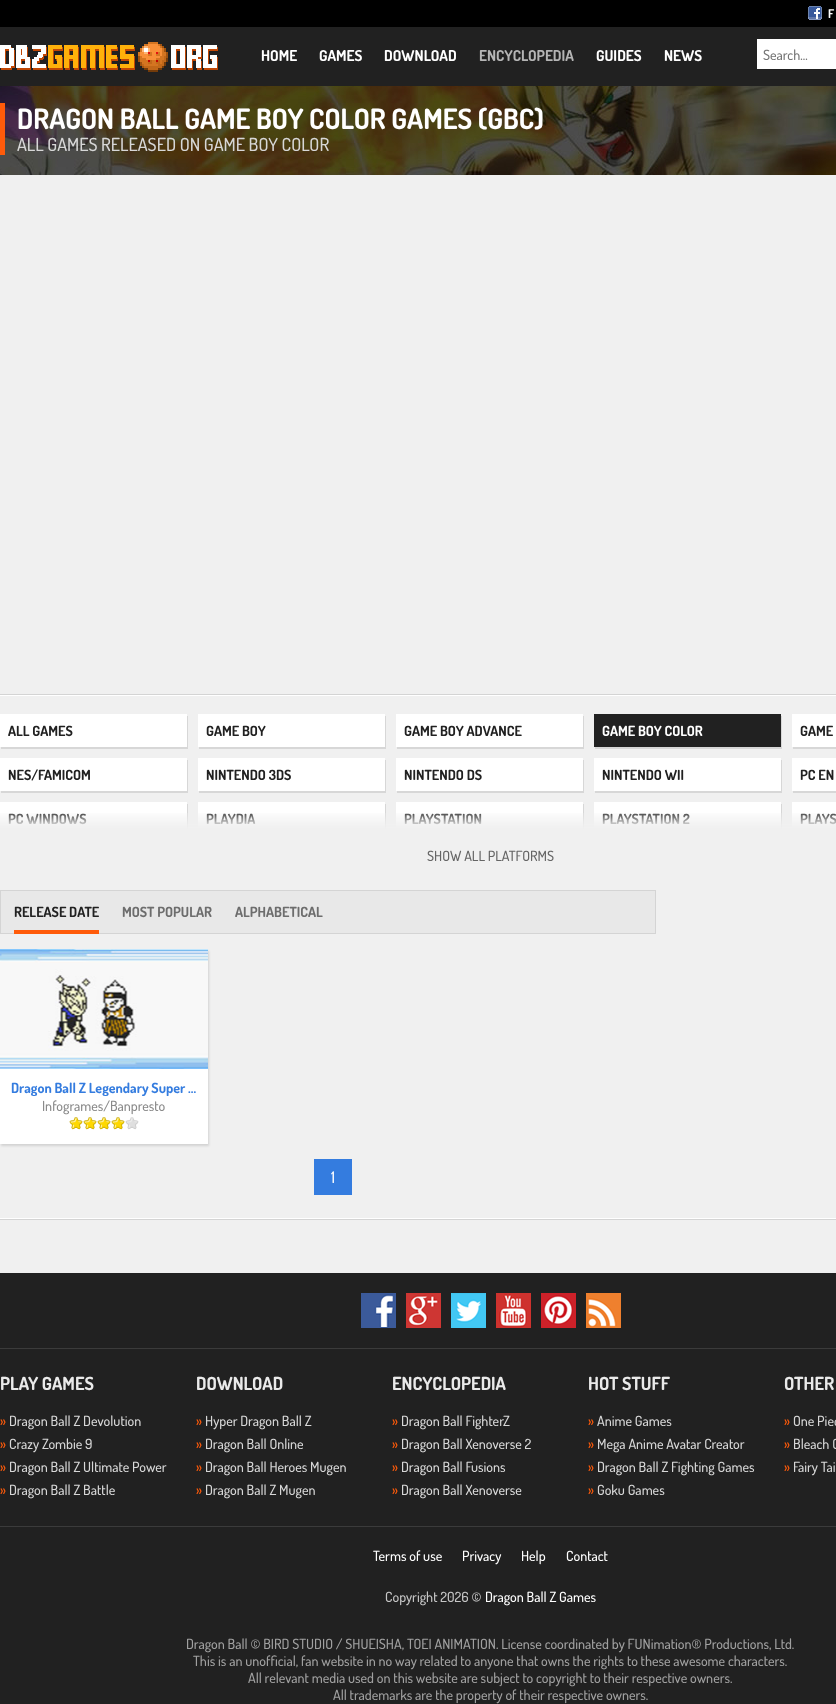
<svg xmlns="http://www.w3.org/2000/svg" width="836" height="1704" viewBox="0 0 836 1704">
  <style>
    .t1 { font: bold 12px Dosis; fill: #fff; }
    .t2 { font: bold 15px Dosis; fill: #fff; }
    .t3 { font: bold 15px Dosis; fill: #b5b5b5; }
    .t4 { font: 500 14px Dosis; fill: #757575; }
    .t5 { font: bold 28px Dosis; fill: #fff; }
    .t6 { font: 500 18px Dosis; fill: #d7d7d7; }
    .t7 { font: bold 14px Dosis; fill: #212121; }
    .t8 { font: bold 14px Dosis; fill: #fff; }
    .t9 { font: 500 14px Dosis; fill: #656565; }
    .t10 { font: bold 14px Dosis; fill: #6d6d6d; }
    .t11 { font: bold 14px Dosis; fill: #347cdf; }
    .t12 { font: 500 14px Dosis; fill: #8a8a8a; }
    .t13 { font: 500 16px Dosis; fill: #fff; }
    .t14 { font: bold 18px Dosis; fill: #eaeaea; }
    .t15 { font: 500 14px Dosis; fill: #ff5b0a; }
    .t16 { font: 500 14px Dosis; fill: #d7d7d7; }
    .t17 { font: 500 14px Dosis; fill: #fff; }
    .t18 { font: 500 14px Dosis; fill: #c6c6c6; }
    .t19 { font: 500 14px Dosis; fill: #a0a0a0; }
  </style>
  <defs>
    <clipPath id="clip1"><rect x="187" y="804" width="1" height="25"/></clipPath>
    <clipPath id="clip2"><rect x="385" y="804" width="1" height="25"/></clipPath>
    <clipPath id="clip3"><rect x="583" y="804" width="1" height="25"/></clipPath>
    <clipPath id="clip4"><rect x="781" y="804" width="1" height="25"/></clipPath>
  </defs>
  <rect width="100%" height="100%" fill="#f0f0f0"/>
  <rect x="0" y="0" width="836" height="27" fill="#000"/>
  <image x="808" y="6" width="14" height="14" href="images/1.png"/>
  <text x="828" y="18" class="t1">F</text>
  <rect x="0" y="27" width="836" height="59" fill="#212121"/>
  <image x="0" y="42" width="218" height="30" href="images/2.png"/>
  <text x="261" y="61" class="t2">HOME</text>
  <text x="319" y="61" class="t2">GAMES</text>
  <text x="384" y="61" class="t2">DOWNLOAD</text>
  <text x="479" y="61" class="t3">ENCYCLOPEDIA</text>
  <text x="596" y="61" class="t2">GUIDES</text>
  <text x="664" y="61" class="t2">NEWS</text>
  <rect x="757" y="39" width="79" height="30" fill="#fff"/>
  <text x="763" y="60" class="t4">Search...</text>
  <image x="0" y="86" width="836" height="89" href="images/3.png"/>
  <rect x="0" y="103" width="5" height="52" fill="#ff5b0a"/>
  <text x="17" y="129" class="t5">DRAGON BALL GAME BOY COLOR GAMES (GBC)</text>
  <text x="17" y="151" class="t6">ALL GAMES RELEASED ON GAME BOY COLOR</text>
  <rect x="0" y="695" width="836" height="1" fill="#fff"/>
  <rect x="0" y="694" width="836" height="1" fill="#d4d4d4"/>
  <rect x="1" y="716" width="187" height="33" fill="#0000001a" filter="blur(0.5px)"/>
  <rect x="0" y="714" width="187" height="33" fill="#fff"/>
  <text x="8" y="736" class="t7">ALL GAMES</text>
  <rect x="199" y="716" width="187" height="33" fill="#0000001a" filter="blur(0.5px)"/>
  <rect x="198" y="714" width="187" height="33" fill="#fff"/>
  <text x="206" y="736" class="t7">GAME BOY</text>
  <rect x="397" y="716" width="187" height="33" fill="#0000001a" filter="blur(0.5px)"/>
  <rect x="396" y="714" width="187" height="33" fill="#fff"/>
  <text x="404" y="736" class="t7">GAME BOY ADVANCE</text>
  <rect x="595" y="716" width="187" height="33" fill="#0000001a" filter="blur(0.5px)"/>
  <rect x="594" y="714" width="187" height="33" fill="#212121"/>
  <text x="602" y="736" class="t8">GAME BOY COLOR</text>
  <rect x="793" y="716" width="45" height="33" fill="#0000001a" filter="blur(0.5px)"/>
  <rect x="792" y="714" width="44" height="33" fill="#fff"/>
  <text x="800" y="736" class="t7">GAME</text>
  <rect x="1" y="760" width="187" height="33" fill="#0000001a" filter="blur(0.5px)"/>
  <rect x="0" y="758" width="187" height="33" fill="#fff"/>
  <text x="8" y="780" class="t7">NES/FAMICOM</text>
  <rect x="199" y="760" width="187" height="33" fill="#0000001a" filter="blur(0.5px)"/>
  <rect x="198" y="758" width="187" height="33" fill="#fff"/>
  <text x="206" y="780" class="t7">NINTENDO 3DS</text>
  <rect x="397" y="760" width="187" height="33" fill="#0000001a" filter="blur(0.5px)"/>
  <rect x="396" y="758" width="187" height="33" fill="#fff"/>
  <text x="404" y="780" class="t7">NINTENDO DS</text>
  <rect x="595" y="760" width="187" height="33" fill="#0000001a" filter="blur(0.5px)"/>
  <rect x="594" y="758" width="187" height="33" fill="#fff"/>
  <text x="602" y="780" class="t7">NINTENDO WII</text>
  <rect x="793" y="760" width="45" height="33" fill="#0000001a" filter="blur(0.5px)"/>
  <rect x="792" y="758" width="44" height="33" fill="#fff"/>
  <text x="800" y="780" class="t7">PC EN</text>
  <g clip-path="url(#clip1)">
    <rect x="1" y="804" width="187" height="33" fill="#0000001a" filter="blur(0.5px)"/>
  </g>
  <rect x="0" y="802" width="187" height="27" fill="#fff"/>
  <text x="8" y="824" class="t7">PC WINDOWS</text>
  <g clip-path="url(#clip2)">
    <rect x="199" y="804" width="187" height="33" fill="#0000001a" filter="blur(0.5px)"/>
  </g>
  <rect x="198" y="802" width="187" height="27" fill="#fff"/>
  <text x="206" y="824" class="t7">PLAYDIA</text>
  <g clip-path="url(#clip3)">
    <rect x="397" y="804" width="187" height="33" fill="#0000001a" filter="blur(0.5px)"/>
  </g>
  <rect x="396" y="802" width="187" height="27" fill="#fff"/>
  <text x="404" y="824" class="t7">PLAYSTATION</text>
  <g clip-path="url(#clip4)">
    <rect x="595" y="804" width="187" height="33" fill="#0000001a" filter="blur(0.5px)"/>
  </g>
  <rect x="594" y="802" width="187" height="27" fill="#fff"/>
  <text x="602" y="824" class="t7">PLAYSTATION 2</text>
  <rect x="792" y="802" width="44" height="27" fill="#fff"/>
  <text x="800" y="824" class="t7">PLAYS</text>
  <image x="0" y="813" width="836" height="16" href="images/4.png"/>
  <text x="427" y="861" class="t9">SHOW ALL PLATFORMS</text>
  <rect x="0.5" y="890.5" width="655" height="43" fill="#e8e8e8" stroke="#d4d4d4"/>
  <rect x="14" y="930" width="85" height="4" fill="#ff5b0a"/>
  <text x="14" y="917" class="t7">RELEASE DATE</text>
  <text x="122" y="917" class="t10">MOST POPULAR</text>
  <text x="235" y="917" class="t10">ALPHABETICAL</text>
  <rect x="1" y="951" width="208" height="195" fill="#0000001f" filter="blur(1px)"/>
  <rect x="0" y="1069" width="208" height="75" fill="#fff"/>
  <image x="0" y="949" width="208" height="120" href="images/5.png"/>
  <text x="11" y="1093" class="t11">Dragon Ball Z Legendary Super ...</text>
  <text x="42" y="1111" class="t12">Infogrames/Banpresto</text>
  <image x="69" y="1117" width="70" height="13" href="images/6.png"/>
  <image x="69" y="1117" width="56" height="13" href="images/7.png"/>
  <rect x="314" y="1159" width="38" height="36" fill="#347cdf"/>
  <text x="331" y="1183" class="t13">1</text>
  <rect x="0" y="1218" width="836" height="1" fill="#fff"/>
  <rect x="0" y="1219" width="836" height="1" fill="#d4d4d4"/>
  <rect x="0" y="1273" width="836" height="431" fill="#212121"/>
  <rect x="0" y="1348" width="836" height="1" fill="#3b3b3b"/>
  <image x="361" y="1293" width="35" height="35" href="images/8.png"/>
  <image x="406" y="1293" width="35" height="35" href="images/9.png"/>
  <image x="451" y="1293" width="35" height="35" href="images/10.png"/>
  <image x="496" y="1293" width="35" height="35" href="images/11.png"/>
  <image x="541" y="1293" width="35" height="35" href="images/12.png"/>
  <image x="586" y="1293" width="35" height="35" href="images/13.png"/>
  <rect x="0" y="1526" width="836" height="1" fill="#3b3b3b"/>
  <text x="0" y="1390" class="t14">PLAY GAMES</text>
  <text x="0" y="1426" class="t15">»</text>
  <text x="9" y="1426" class="t16">Dragon Ball Z Devolution</text>
  <text x="0" y="1449" class="t15">»</text>
  <text x="9" y="1449" class="t16">Crazy Zombie 9</text>
  <text x="0" y="1472" class="t15">»</text>
  <text x="9" y="1472" class="t16">Dragon Ball Z Ultimate Power</text>
  <text x="0" y="1495" class="t15">»</text>
  <text x="9" y="1495" class="t16">Dragon Ball Z Battle</text>
  <text x="196" y="1390" class="t14">DOWNLOAD</text>
  <text x="196" y="1426" class="t15">»</text>
  <text x="205" y="1426" class="t16">Hyper Dragon Ball Z</text>
  <text x="196" y="1449" class="t15">»</text>
  <text x="205" y="1449" class="t16">Dragon Ball Online</text>
  <text x="196" y="1472" class="t15">»</text>
  <text x="205" y="1472" class="t16">Dragon Ball Heroes Mugen</text>
  <text x="196" y="1495" class="t15">»</text>
  <text x="205" y="1495" class="t16">Dragon Ball Z Mugen</text>
  <text x="392" y="1390" class="t14">ENCYCLOPEDIA</text>
  <text x="392" y="1426" class="t15">»</text>
  <text x="401" y="1426" class="t16">Dragon Ball FighterZ</text>
  <text x="392" y="1449" class="t15">»</text>
  <text x="401" y="1449" class="t16">Dragon Ball Xenoverse 2</text>
  <text x="392" y="1472" class="t15">»</text>
  <text x="401" y="1472" class="t16">Dragon Ball Fusions</text>
  <text x="392" y="1495" class="t15">»</text>
  <text x="401" y="1495" class="t16">Dragon Ball Xenoverse</text>
  <text x="588" y="1390" class="t14">HOT STUFF</text>
  <text x="588" y="1426" class="t15">»</text>
  <text x="597" y="1426" class="t16">Anime Games</text>
  <text x="588" y="1449" class="t15">»</text>
  <text x="597" y="1449" class="t16">Mega Anime Avatar Creator</text>
  <text x="588" y="1472" class="t15">»</text>
  <text x="597" y="1472" class="t16">Dragon Ball Z Fighting Games</text>
  <text x="588" y="1495" class="t15">»</text>
  <text x="597" y="1495" class="t16">Goku Games</text>
  <text x="784" y="1390" class="t14">OTHER</text>
  <text x="784" y="1426" class="t15">»</text>
  <text x="793" y="1426" class="t16">One Piec</text>
  <text x="784" y="1449" class="t15">»</text>
  <text x="793" y="1449" class="t16">Bleach G</text>
  <text x="784" y="1472" class="t15">»</text>
  <text x="793" y="1472" class="t16">Fairy Tai</text>
  <text x="373" y="1561" class="t17">Terms of use</text>
  <text x="462" y="1561" class="t17">Privacy</text>
  <text x="521" y="1561" class="t17">Help</text>
  <text x="566" y="1561" class="t17">Contact</text>
  <text x="385" y="1602" class="t18">Copyright 2026 ©</text>
  <text x="485" y="1602" class="t17">Dragon Ball Z Games</text>
  <text x="186" y="1649" class="t19">Dragon Ball © BIRD STUDIO / SHUEISHA, TOEI ANIMATION. License coordinated by FUNimation® Productions, Ltd.</text>
  <text x="193" y="1666" class="t19">This is an unofficial, fan website in no way related to anyone that owns the rights to these awesome characters.</text>
  <text x="248" y="1683" class="t19">All relevant media used on this website are subject to copyright to their respective owners.</text>
  <text x="333" y="1700" class="t19">All trademarks are the property of their respective owners.</text>
</svg>
